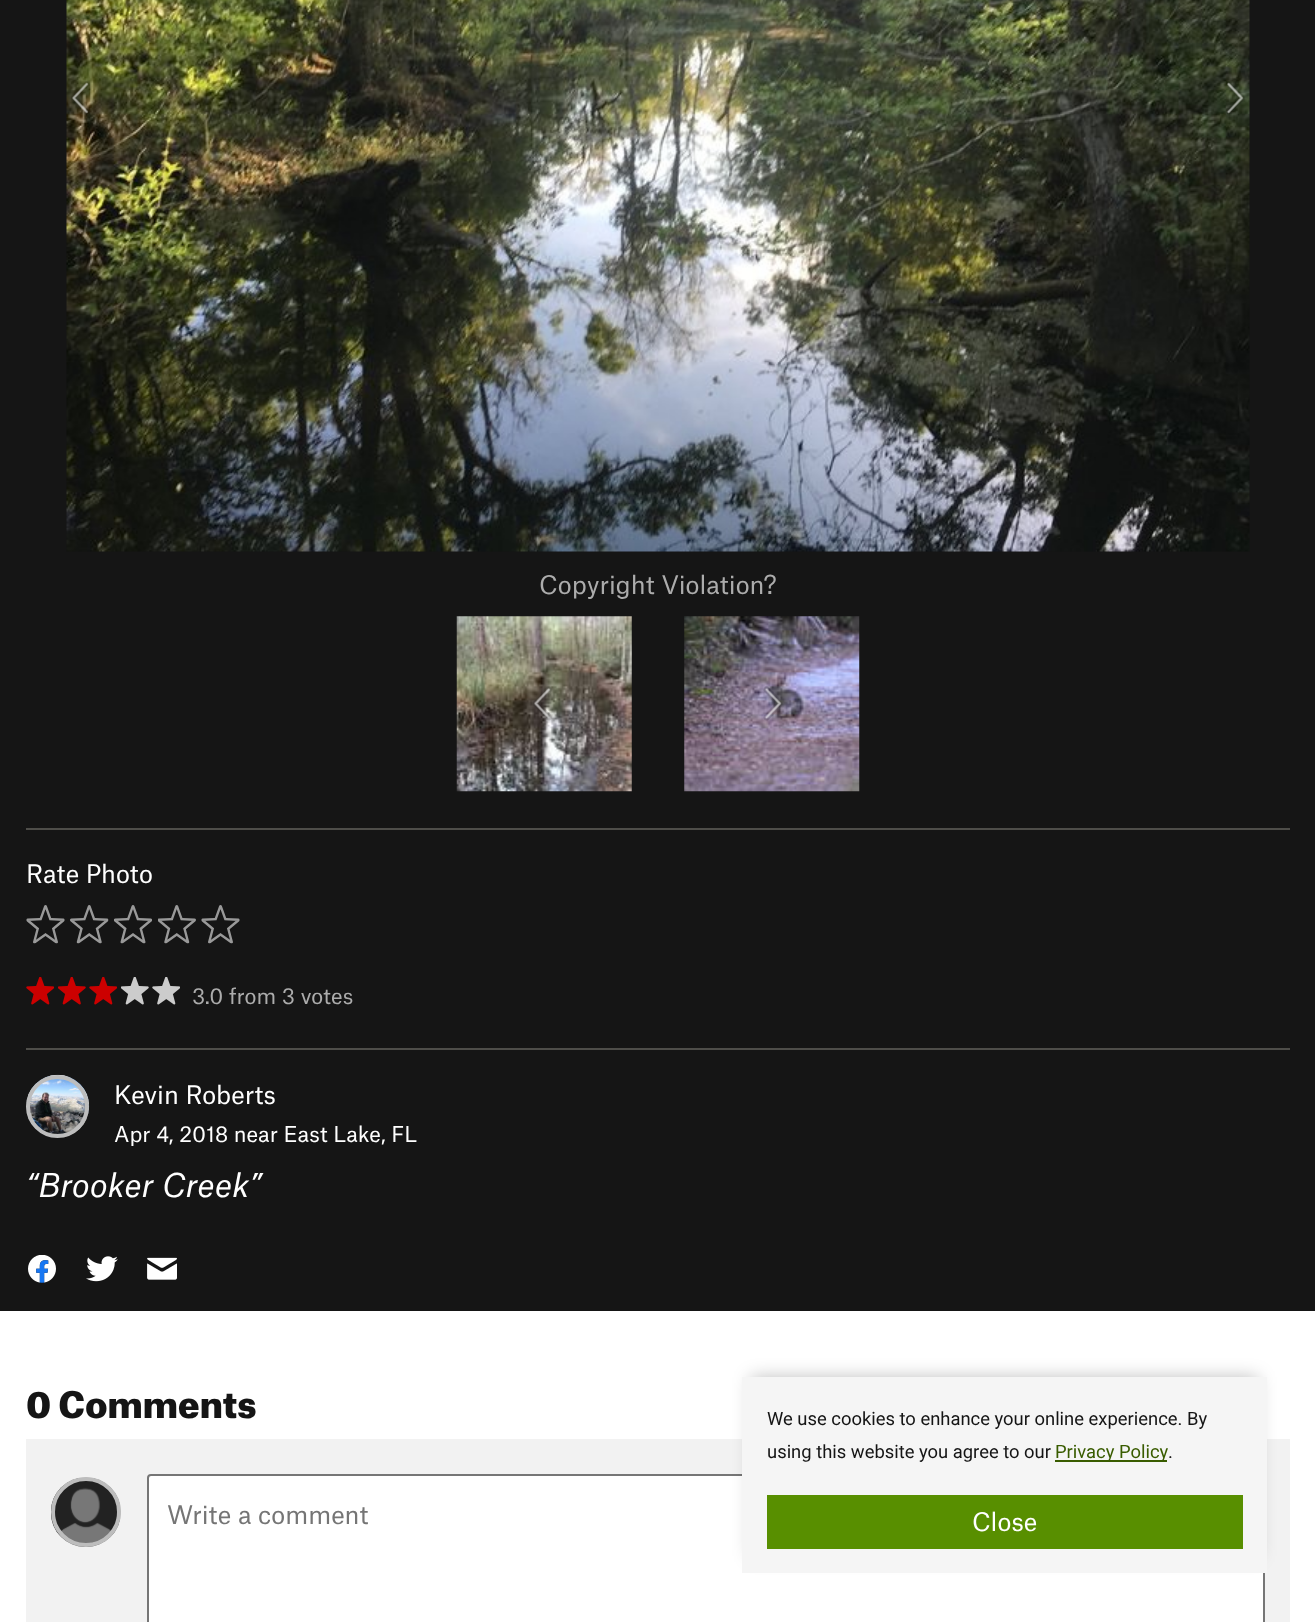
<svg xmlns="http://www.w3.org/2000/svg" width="1315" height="1622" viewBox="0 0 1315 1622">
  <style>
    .t1 { font: 24.5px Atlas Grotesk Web; fill: #acacac; }
    .t2 { font: 24.5px Atlas Grotesk Web; fill: #fff; }
    .t3 { font: 21px Atlas Grotesk Web; fill: #acacac; }
    .t4 { font: 21px Atlas Grotesk Web; fill: #fff; }
    .t5 { font: italic 31.5px Atlas Grotesk Web; fill: #fff; }
    .t6 { font: 900 35px Atlas Grotesk Web; fill: #151515; }
    .t7 { font: 24.5px Atlas Grotesk Web; fill: #757575; }
    .t8 { font: 18.4px Roboto; fill: #151515; }
    .t9 { font: 18.4px Roboto; fill: #395c00; }
  </style>
  <rect width="100%" height="100%" fill="#fff"/>
  <rect x="0" y="0" width="1315" height="1311" fill="#151515"/>
  <image x="66" y="0" width="1184" height="552" href="images/1.png"/>
  <image x="71" y="81" width="19" height="34" href="images/2.png"/>
  <image x="1227" y="82" width="18" height="32" href="images/3.png"/>
  <text x="539" y="594" class="t1">Copyright Violation?</text>
  <image x="456" y="616" width="176" height="176" href="images/4.png"/>
  <image x="533" y="686" width="19" height="35" href="images/5.png"/>
  <image x="684" y="616" width="176" height="176" href="images/6.png"/>
  <image x="763" y="686" width="20" height="35" href="images/7.png"/>
  <rect x="26" y="828" width="1264" height="2" fill="#4e4d49"/>
  <text x="26" y="883" class="t2">Rate Photo</text>
  <image x="26" y="905" width="39" height="39" href="images/8.png"/>
  <image x="70" y="905" width="39" height="39" href="images/9.png"/>
  <image x="114" y="905" width="38" height="39" href="images/10.png"/>
  <image x="158" y="905" width="38" height="39" href="images/11.png"/>
  <image x="201" y="905" width="39" height="39" href="images/8.png"/>
  <image x="26" y="977" width="28" height="28" href="images/12.png"/>
  <image x="58" y="977" width="28" height="28" href="images/13.png"/>
  <image x="89" y="977" width="28" height="28" href="images/12.png"/>
  <image x="121" y="977" width="28" height="28" href="images/14.png"/>
  <image x="152" y="977" width="28" height="28" href="images/15.png"/>
  <text x="192" y="1004" class="t3">3.0 from 3 votes</text>
  <rect x="26" y="1048" width="1264" height="2" fill="#4e4d49"/>
  <image x="26" y="1074" width="64" height="64" href="images/16.png"/>
  <circle cx="57.5" cy="1106.5" r="29.5" fill="none" stroke="#bdbdbd" stroke-width="4"/>
  <text x="114" y="1104" class="t2">Kevin Roberts</text>
  <text x="114" y="1142" class="t4">Apr 4, 2018 near East Lake, FL</text>
  <text x="26" y="1197" class="t5">“Brooker Creek”</text>
  <image x="28" y="1255" width="28" height="28" href="images/17.png"/>
  <image x="86" y="1256" width="32" height="26" href="images/18.png"/>
  <image x="147" y="1257" width="30" height="23" href="images/19.png"/>
  <text x="26" y="1418" class="t6">0 Comments</text>
  <rect x="26" y="1439" width="1264" height="183" fill="#f2f2f2"/>
  <image x="51" y="1477" width="70" height="70" href="images/20.png"/>
  <circle cx="86" cy="1512" r="33" fill="none" stroke="#bdbdbd" stroke-width="4"/>
  <rect x="148" y="1475" width="1116" height="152" rx="3" fill="#fff" stroke="#767676" stroke-width="2"/>
  <text x="167" y="1524" class="t7">Write a comment</text>
  <rect x="751" y="1377" width="507" height="179" fill="#00000040" filter="blur(9px)"/>
  <rect x="742" y="1377" width="525" height="196" fill="#f5f5f5"/>
  <text x="767" y="1425" class="t8">We use cookies to enhance your online experience. By</text>
  <text x="767" y="1458" class="t8">using this website you agree to our</text>
  <rect x="1055" y="1460" width="112" height="2" fill="#395c00"/>
  <text x="1055" y="1458" class="t9">Privacy Policy</text>
  <text x="1168" y="1458" class="t8">.</text>
  <rect x="767" y="1495" width="476" height="54" fill="#588f00"/>
  <text x="972" y="1531" class="t2">Close</text>
</svg>
